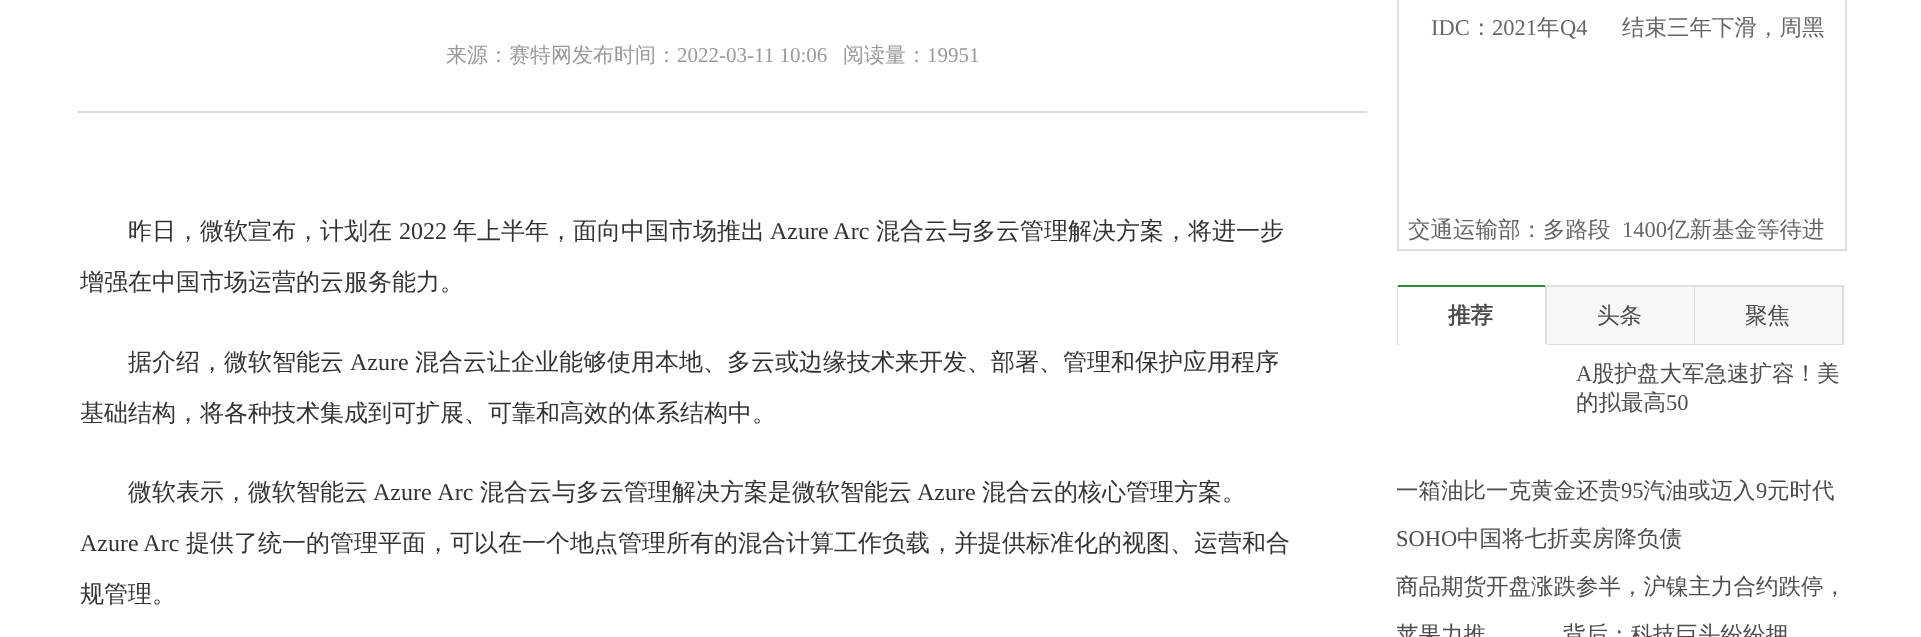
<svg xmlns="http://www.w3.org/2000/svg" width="1921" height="637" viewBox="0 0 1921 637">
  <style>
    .t1 { font: 500 21px WenQuanYi Zen Hei; fill: #999; }
    .t2 { font: 21px Liberation Serif; fill: #999; }
    .t3 { font: 500 24px WenQuanYi Zen Hei; fill: #333; }
    .t4 { font: 24px Liberation Serif; fill: #333; }
    .t5 { font: 22.5px Liberation Serif; fill: #666; }
    .t6 { font: 500 22.5px WenQuanYi Zen Hei; fill: #666; }
    .t7 { font: bold 22.5px WenQuanYi Zen Hei; fill: #4c4c4c; }
    .t8 { font: 500 22.5px WenQuanYi Zen Hei; fill: #4c4c4c; }
    .t9 { font: 22.5px Liberation Serif; fill: #4c4c4c; }
  </style>
  <defs>
    <clipPath id="clip1"><rect x="1397" y="609" width="450" height="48"/></clipPath>
  </defs>
  <rect width="100%" height="100%" fill="#fff"/>
  <rect x="77" y="111" width="1290" height="2" fill="#dedede"/>
  <text x="446" y="62" class="t1">来源：赛特网发布时间：</text>
  <text x="677" y="62" class="t2">2022-03-11 10:06</text>
  <text x="843" y="62" class="t1">阅读量：</text>
  <text x="927" y="62" class="t2">19951</text>
  <text x="128" y="239" class="t3">昨日，微软宣布，计划在</text>
  <text x="399" y="239" class="t4">2022</text>
  <text x="453" y="239" class="t3">年上半年，面向中国市场推出</text>
  <text x="770" y="239" class="t4">Azure Arc</text>
  <text x="876" y="239" class="t3">混合云与多云管理解决方案，将进一步</text>
  <text x="80" y="290" class="t3">增强在中国市场运营的云服务能力。</text>
  <text x="128" y="370" class="t3">据介绍，微软智能云</text>
  <text x="350" y="370" class="t4">Azure</text>
  <text x="415" y="370" class="t3">混合云让企业能够使用本地、多云或边缘技术来开发、部署、管理和保护应用程序</text>
  <text x="80" y="421" class="t3">基础结构，将各种技术集成到可扩展、可靠和高效的体系结构中。</text>
  <text x="128" y="500" class="t3">微软表示，微软智能云</text>
  <text x="373" y="500" word-spacing="1" class="t4">Azure Arc</text>
  <text x="480" y="500" class="t3">混合云与多云管理解决方案是微软智能云</text>
  <text x="917" y="500" class="t4">Azure</text>
  <text x="982" y="500" class="t3">混合云的核心管理方案。</text>
  <text x="80" y="551" class="t4">Azure Arc</text>
  <text x="186" y="551" class="t3">提供了统一的管理平面，可以在一个地点管理所有的混合计算工作负载，并提供标准化的视图、运营和合</text>
  <text x="80" y="602" class="t3">规管理。</text>
  <rect x="1398" y="-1" width="448" height="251" fill="none" stroke="#dedede" stroke-width="2"/>
  <text x="1431" y="35" class="t5">IDC</text>
  <text x="1470" y="35" class="t6">：</text>
  <text x="1492" y="35" class="t5">2021</text>
  <text x="1537" y="35" class="t6">年</text>
  <text x="1560" y="35" class="t5">Q4</text>
  <text x="1622" y="35" class="t6">结束三年下滑，周黑</text>
  <text x="1408" y="237" class="t6">交通运输部：多路段</text>
  <text x="1622" y="237" class="t5">1400</text>
  <text x="1667" y="237" class="t6">亿新基金等待进</text>
  <rect x="1397" y="285" width="2" height="60" fill="#dedede"/>
  <rect x="1398" y="287" width="1" height="57" fill="#fff"/>
  <rect x="1398" y="285" width="149" height="2" fill="#378638"/>
  <rect x="1545" y="285" width="2" height="59" fill="#dedede"/>
  <text x="1448" y="323" class="t7">推荐</text>
  <rect x="1547" y="287" width="147" height="57" fill="#f7f7f7"/>
  <rect x="1547" y="285" width="297" height="2" fill="#dedede"/>
  <rect x="1694" y="285" width="1" height="60" fill="#dedede"/>
  <rect x="1547" y="344" width="148" height="1" fill="#dedede"/>
  <text x="1597" y="323" class="t8">头条</text>
  <rect x="1695" y="287" width="147" height="57" fill="#f7f7f7"/>
  <rect x="1842" y="285" width="2" height="60" fill="#dedede"/>
  <rect x="1695" y="344" width="149" height="1" fill="#dedede"/>
  <text x="1745" y="323" class="t8">聚焦</text>
  <text x="1576" y="381" class="t9">A</text>
  <text x="1592" y="381" class="t8">股护盘大军急速扩容！美</text>
  <text x="1576" y="410" class="t8">的拟最高</text>
  <text x="1666" y="410" class="t9">50</text>
  <text x="1396" y="498" class="t8">一箱油比一克黄金还贵</text>
  <text x="1621" y="498" class="t9">95</text>
  <text x="1643" y="498" class="t8">汽油或迈入</text>
  <text x="1756" y="498" class="t9">9</text>
  <text x="1767" y="498" class="t8">元时代</text>
  <text x="1396" y="546" class="t9">SOHO</text>
  <text x="1457" y="546" class="t8">中国将七折卖房降负债</text>
  <text x="1396" y="594" class="t8">商品期货开盘涨跌参半，沪镍主力合约跌停，</text>
  <g clip-path="url(#clip1)">
    <text x="1396" y="642" class="t8">苹果力推</text>
  </g>
  <text x="1563" y="642" class="t8">背后：科技巨头纷纷押</text>
</svg>
